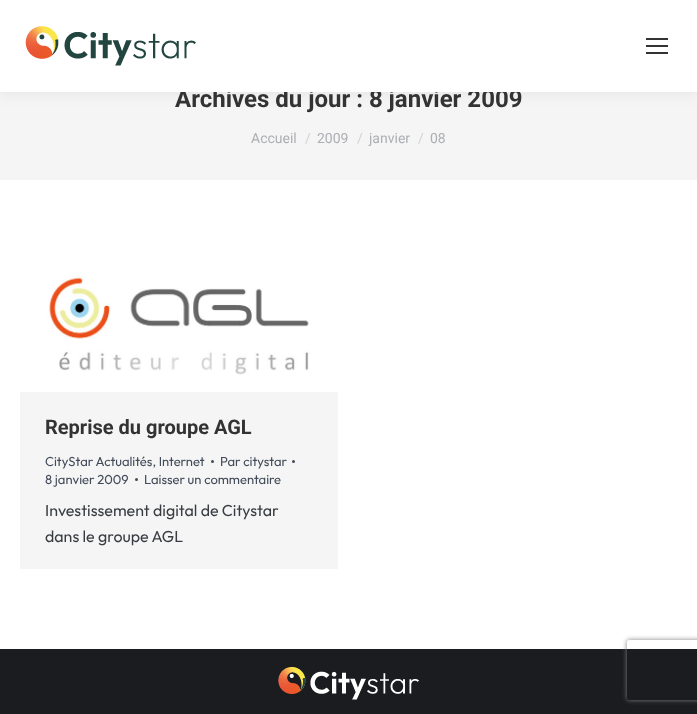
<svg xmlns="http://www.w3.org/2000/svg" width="697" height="714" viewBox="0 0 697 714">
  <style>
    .t1 { font: bold 24px Roboto; fill: #333; }
    .t2 { font: 14px Roboto; fill: #adafb3; }
    .t3 { font: 14px Roboto; fill: #d1d2d4; }
    .t4 { font: bold 20px Roboto; fill: #333; }
    .t5 { font: 13px Outfit; fill: #424b59; }
    .t6 { font: 16px Outfit; fill: #393d42; }
  </style>
  <defs>
    <clipPath id="clip1"><path d="M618 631H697V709H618ZM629 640H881C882 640 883 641 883 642V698C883 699 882 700 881 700H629C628 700 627 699 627 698V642C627 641 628 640 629 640Z" clip-rule="evenodd"/></clipPath>
  </defs>
  <rect width="100%" height="100%" fill="#fff"/>
  <rect x="0" y="92" width="697" height="88" fill="#f5f5f5"/>
  <rect x="-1" y="-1" width="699" height="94" fill="#00000012" filter="blur(7.5px)"/>
  <text x="175" y="107" class="t1">Archives du jour : 8 janvier 2009</text>
  <rect x="0" y="0" width="697" height="92" fill="#fff"/>
  <image x="25" y="26" width="171" height="40" href="images/1.png"/>
  <rect x="646" y="38" width="22" height="2" fill="#333"/>
  <rect x="646" y="45" width="22" height="2" fill="#333"/>
  <rect x="646" y="52" width="22" height="2" fill="#333"/>
  <text x="251" y="143" class="t2">Accueil</text>
  <text x="305" y="143" class="t3">/</text>
  <text x="317" y="143" class="t2">2009</text>
  <text x="357" y="143" class="t3">/</text>
  <text x="369" y="143" class="t2">janvier</text>
  <text x="418" y="143" class="t3">/</text>
  <text x="430" y="143" class="t2">08</text>
  <rect x="20" y="391" width="318" height="178" fill="#f5f5f5"/>
  <image x="20" y="260" width="318" height="132" href="images/2.png"/>
  <text x="45" y="434" class="t4">Reprise du groupe AGL</text>
  <text x="45" y="466" class="t5">CityStar Actualités, Internet</text>
  <circle cx="212.5" cy="461.5" r="1.5" fill="#424b59"/>
  <text x="220" y="466" class="t5">Par citystar</text>
  <circle cx="293.5" cy="461.5" r="1.5" fill="#424b59"/>
  <text x="45" y="484" class="t5">8 janvier 2009</text>
  <circle cx="136.5" cy="479.5" r="1.5" fill="#424b59"/>
  <text x="144" y="484" class="t5">Laisser un commentaire</text>
  <text x="45" y="516" class="t6">Investissement digital de Citystar</text>
  <text x="45" y="542" class="t6">dans le groupe AGL</text>
  <rect x="0" y="649" width="697" height="65" fill="#1a1c20"/>
  <image x="278" y="667" width="141" height="33" href="images/3.png"/>
  <g clip-path="url(#clip1)">
    <rect x="627" y="640" width="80" height="60" rx="2" fill="#808080" filter="blur(2.5px)"/>
  </g>
</svg>
